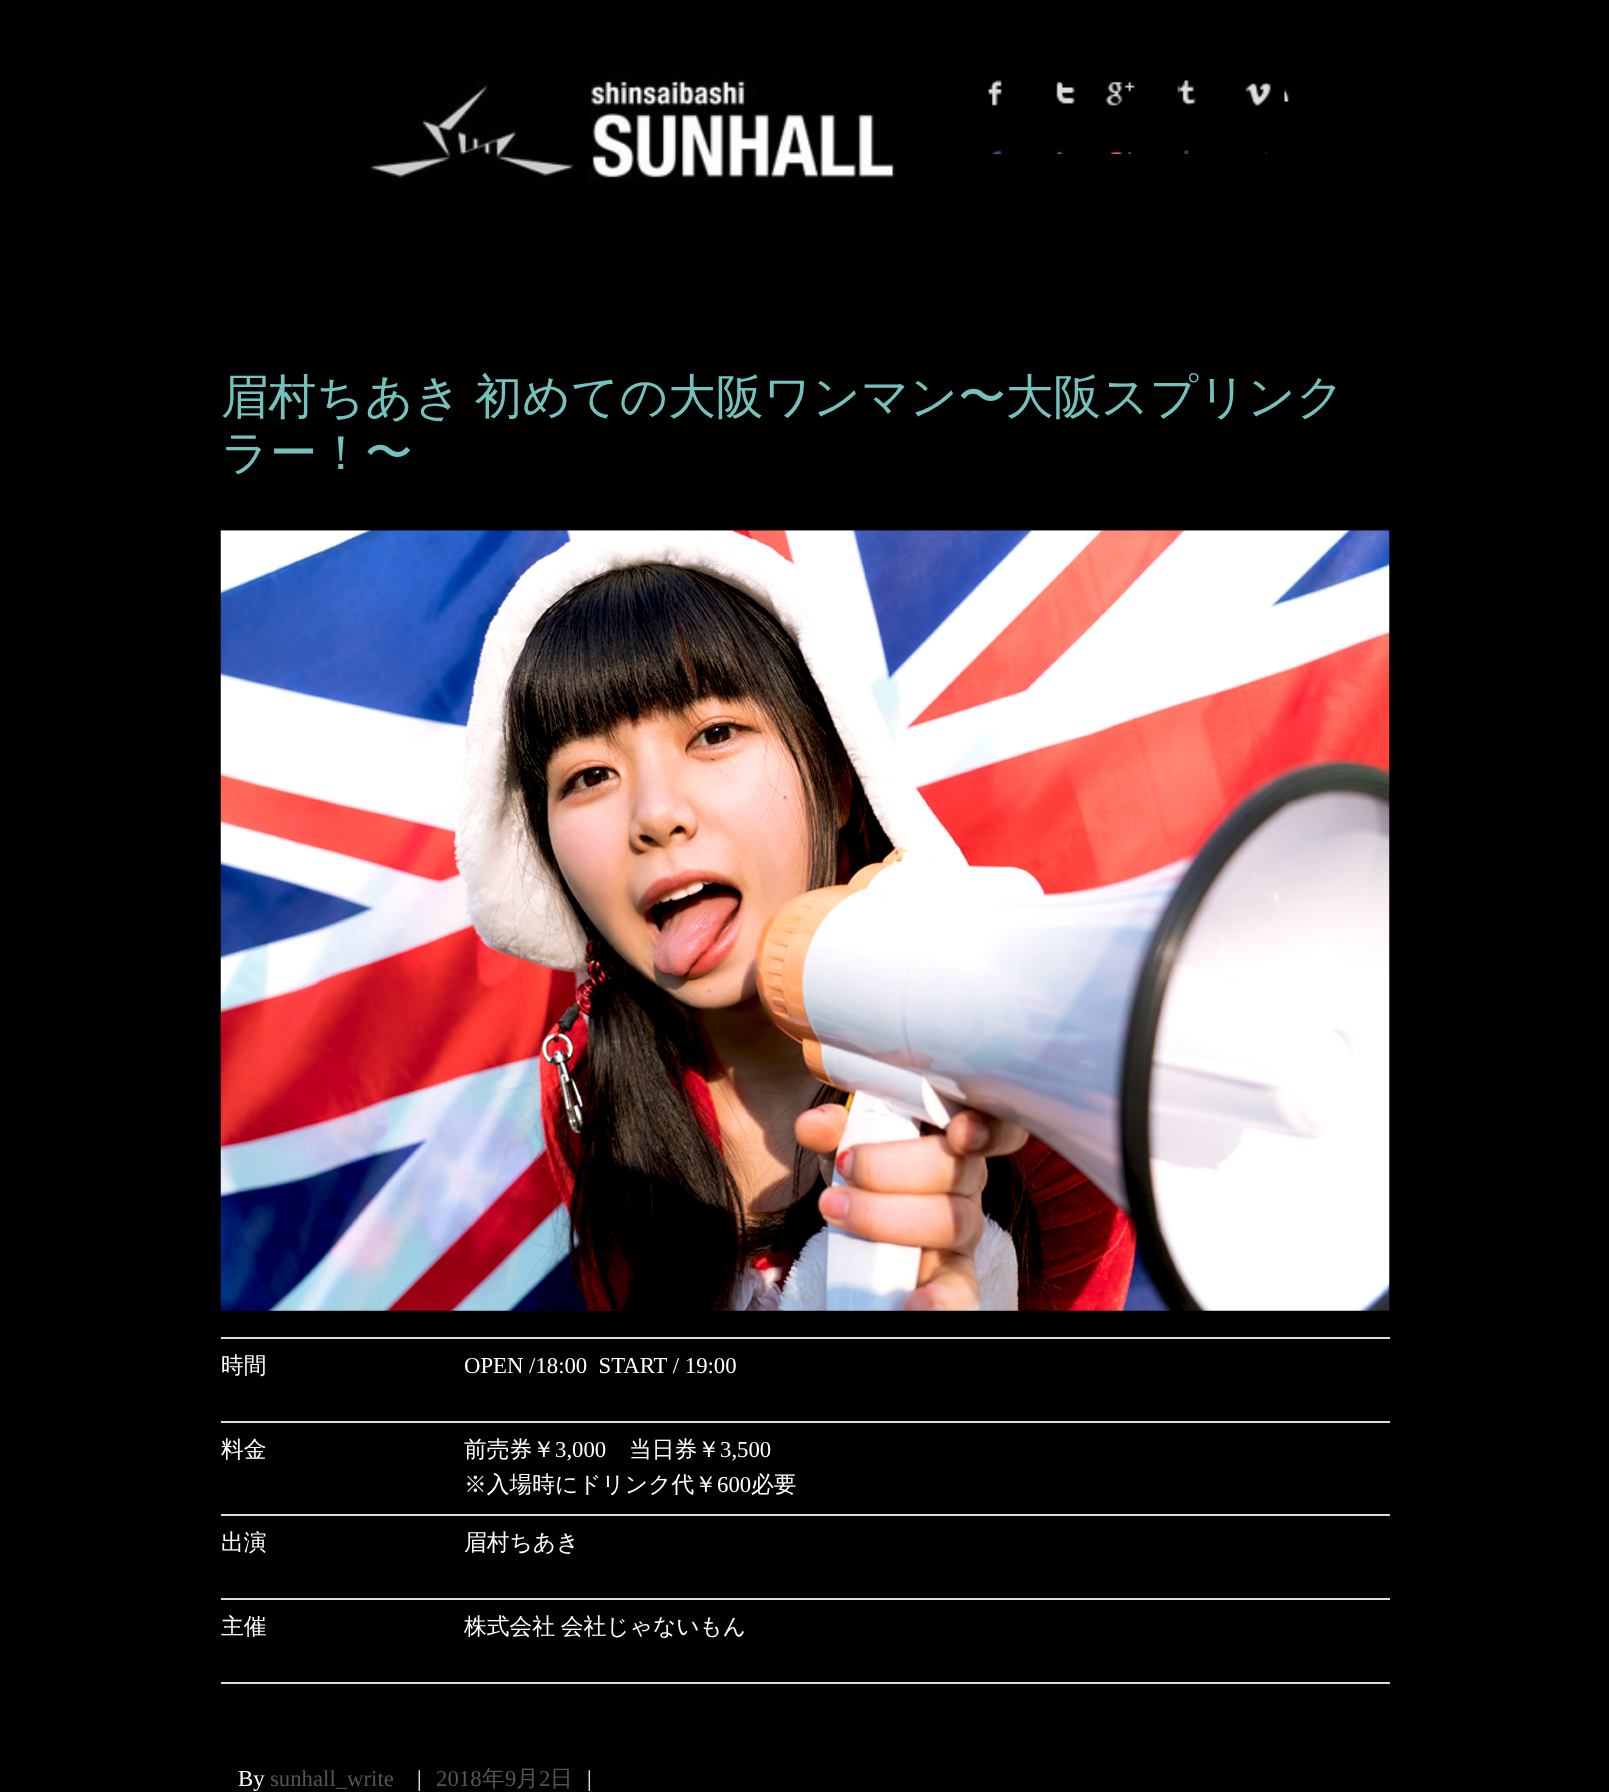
<svg xmlns="http://www.w3.org/2000/svg" width="1609" height="1792" viewBox="0 0 1609 1792">
  <style>
    .t1 { font: 500 47.6px WenQuanYi Zen Hei; fill: #74c2bd; }
    .t2 { font: 500 22.75px WenQuanYi Zen Hei; fill: #fff; }
    .t3 { font: 22.75px Liberation Serif; fill: #fff; }
    .t4 { font: 22.75px Liberation Serif; fill: #555; }
    .t5 { font: 500 22.75px WenQuanYi Zen Hei; fill: #555; }
  </style>
  <rect width="100%" height="100%" fill="#000"/>
  <image x="369" y="70" width="527" height="112" href="images/1.png"/>
  <image x="987" y="80" width="88" height="74" href="images/2.png"/>
  <image x="1105" y="81" width="75" height="73" href="images/3.png"/>
  <image x="1179" y="80" width="92" height="74" href="images/4.png"/>
  <image x="1284" y="89" width="5" height="13" href="images/5.png"/>
  <text x="221" y="413" word-spacing="-2" class="t1">眉村ちあき 初めての大阪ワンマン〜大阪スプリンク</text>
  <text x="221" y="469" class="t1">ラー！〜</text>
  <image x="220" y="530" width="1170" height="781" href="images/6.png"/>
  <rect x="221" y="1682" width="1169" height="2" fill="#ddd"/>
  <rect x="221" y="1337" width="1169" height="2" fill="#ddd"/>
  <text x="221" y="1373" class="t2">時間</text>
  <text x="464" y="1373" class="t3" xml:space="preserve">OPEN /18:00  START / 19:00</text>
  <rect x="221" y="1421" width="1169" height="2" fill="#ddd"/>
  <text x="221" y="1457" class="t2">料金</text>
  <text x="464" y="1457" class="t2">前売券￥</text>
  <text x="555" y="1457" class="t3">3,000</text>
  <text x="629" y="1457" class="t2">当日券￥</text>
  <text x="720" y="1457" class="t3">3,500</text>
  <text x="464" y="1492" class="t2">※入場時にドリンク代￥</text>
  <text x="717" y="1492" class="t3">600</text>
  <text x="751" y="1492" class="t2">必要</text>
  <rect x="221" y="1514" width="1169" height="2" fill="#ddd"/>
  <text x="221" y="1550" class="t2">出演</text>
  <text x="464" y="1550" class="t2">眉村ちあき</text>
  <rect x="221" y="1598" width="1169" height="2" fill="#ddd"/>
  <text x="221" y="1634" class="t2">主催</text>
  <text x="464" y="1634" word-spacing="-1" class="t2">株式会社 会社じゃないもん</text>
  <text x="238" y="1786" class="t3">By</text>
  <text x="270" y="1786" class="t4">sunhall_write</text>
  <text x="417" y="1786" class="t3">|</text>
  <text x="436" y="1786" class="t4">2018</text>
  <text x="482" y="1786" class="t5">年</text>
  <text x="505" y="1786" class="t4">9</text>
  <text x="516" y="1786" class="t5">月</text>
  <text x="539" y="1786" class="t4">2</text>
  <text x="550" y="1786" class="t5">日</text>
  <text x="587" y="1786" class="t3">|</text>
</svg>
